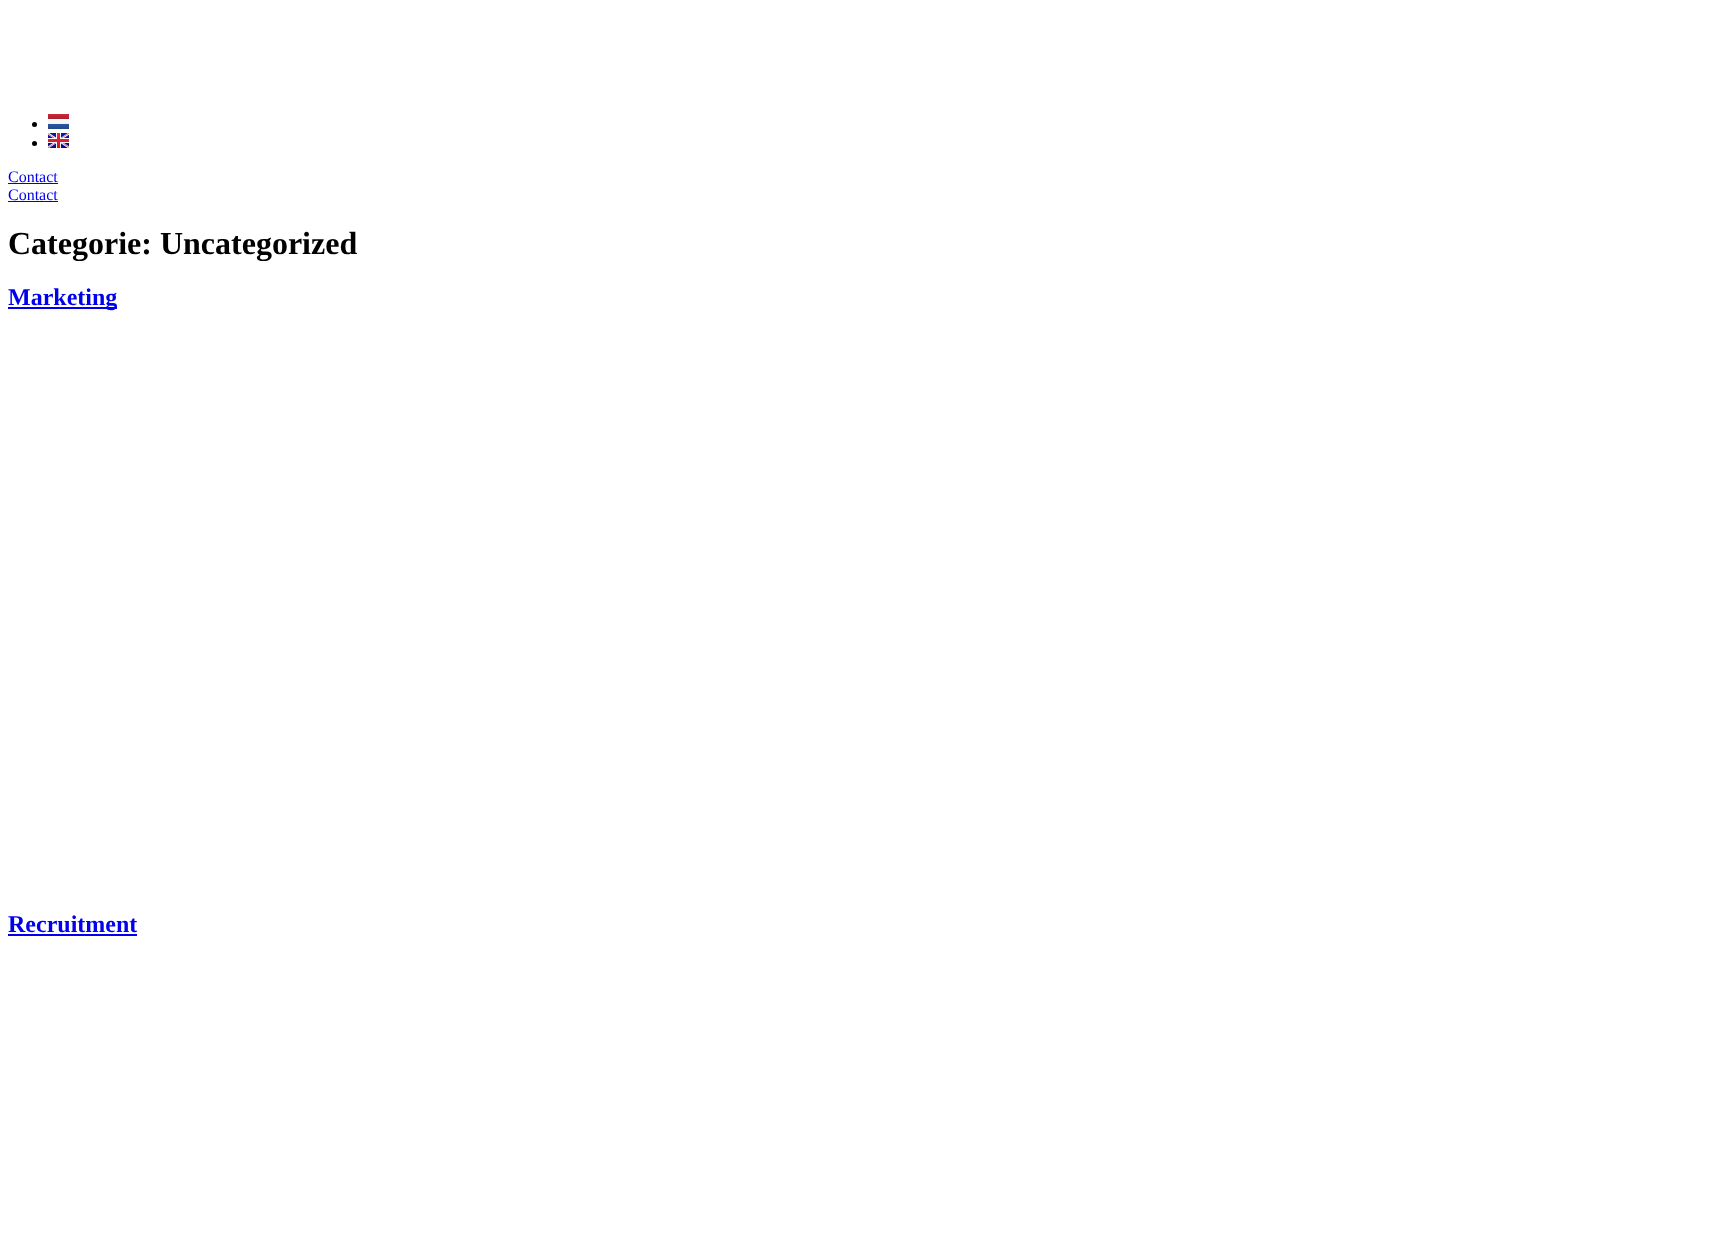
<svg xmlns="http://www.w3.org/2000/svg" width="1721" height="1239" viewBox="0 0 1721 1239">
  <style>
    .t1 { font: 16px Liberation Serif; fill: #00e; }
    .t2 { font: bold 32px Liberation Serif; fill: #000; }
    .t3 { font: bold 24px Liberation Serif; fill: #00e; }
  </style>
  <defs>
    <linearGradient id="g1" gradientUnits="userSpaceOnUse" x1="59" y1="114" x2="59" y2="119"><stop offset="0" stop-color="#ca2b39"/><stop offset="1" stop-color="#ac1f2c"/></linearGradient>
    <linearGradient id="g2" gradientUnits="userSpaceOnUse" x1="59" y1="119" x2="59" y2="124"><stop offset="0" stop-color="#fff"/><stop offset="1" stop-color="#f0f0f0"/></linearGradient>
    <linearGradient id="g3" gradientUnits="userSpaceOnUse" x1="59" y1="124" x2="59" y2="129"><stop offset="0" stop-color="#2c56a2"/><stop offset="1" stop-color="#244889"/></linearGradient>
  </defs>
  <rect width="100%" height="100%" fill="#fff"/>
  <rect x="48" y="114" width="21" height="5" fill="url(#g1)"/>
  <circle cx="34.5" cy="124.5" r="2.5" fill="#000"/>
  <rect x="48" y="120" width="21" height="4" fill="url(#g2)"/>
  <rect x="48" y="124" width="21" height="5" fill="url(#g3)"/>
  <circle cx="34.5" cy="143.5" r="2.5" fill="#000"/>
  <image x="48" y="133" width="21" height="15" href="images/1.png"/>
  <text x="8" y="182" class="t1">Contact</text>
  <rect x="8" y="183" width="50" height="1" fill="#00e"/>
  <text x="8" y="200" class="t1">Contact</text>
  <rect x="8" y="201" width="50" height="1" fill="#00e"/>
  <text x="8" y="254" class="t2">Categorie: Uncategorized</text>
  <rect x="8" y="307" width="109" height="2" fill="#00e"/>
  <text x="8" y="305" class="t3">Marketing</text>
  <text x="8" y="932" class="t3">Recruitment</text>
  <rect x="8" y="934" width="129" height="2" fill="#00e"/>
</svg>
